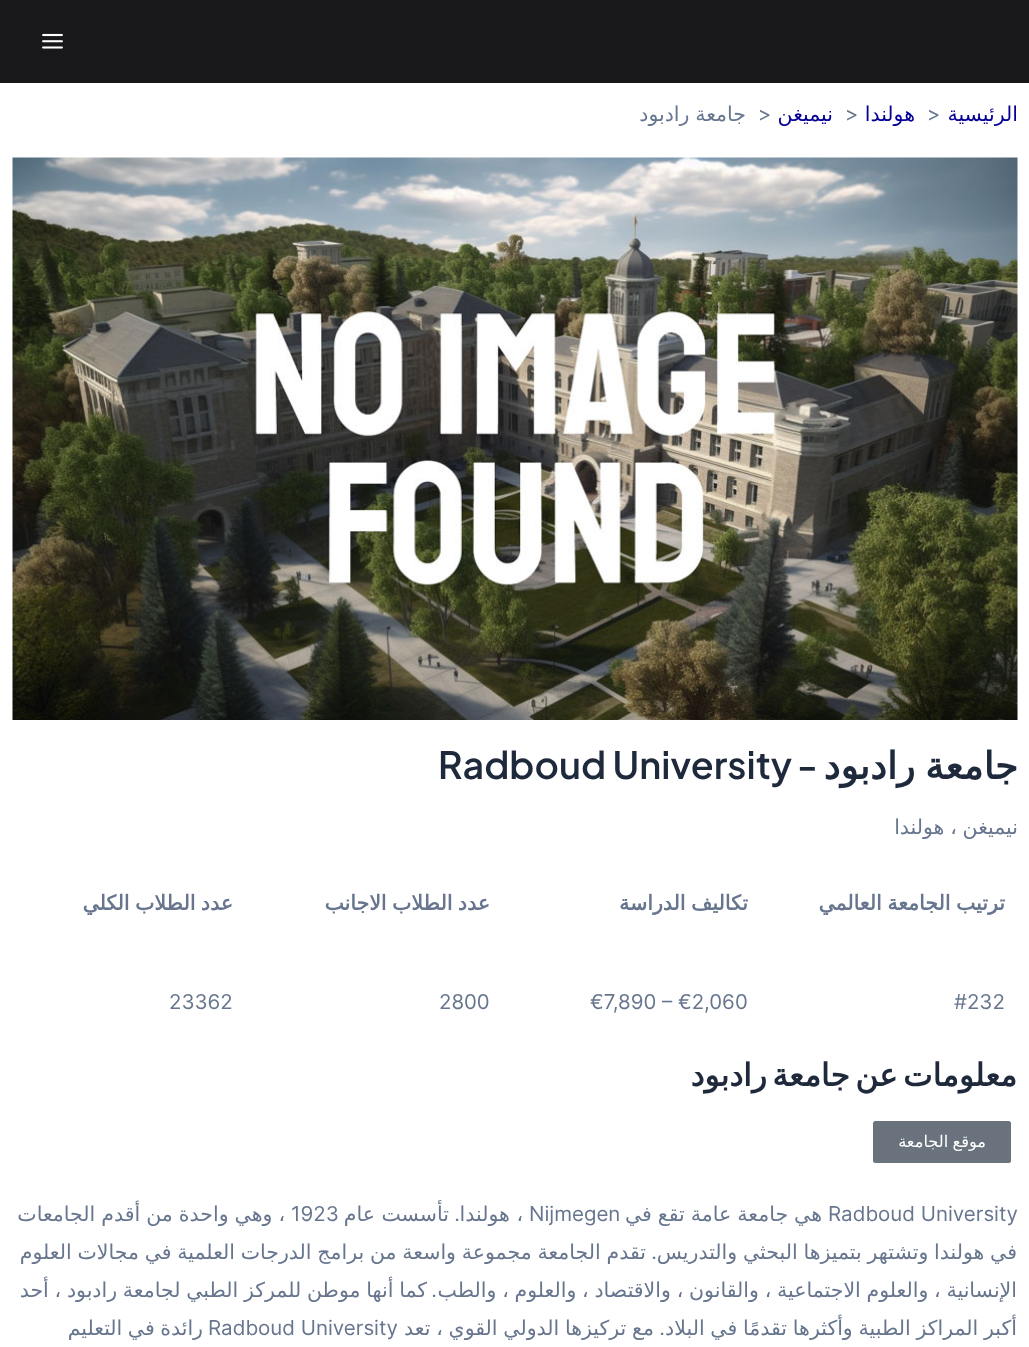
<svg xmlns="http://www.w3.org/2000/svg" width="1029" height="1347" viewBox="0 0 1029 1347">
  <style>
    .t1 { font: 20.5px DejaVu Sans; direction: rtl; fill: #060097; }
    .t2 { font: 20.5px Inter; fill: #67768e; }
    .t3 { font: 20.5px DejaVu Sans; direction: rtl; fill: #67768e; }
    .t4 { font: bold 37.5px DejaVu Sans; direction: rtl; fill: #1e293b; }
    .t5 { font: 600 37.5px Plus Jakarta Sans; direction: rtl; fill: #1e293b; }
    .t6 { font: 600 37.5px Plus Jakarta Sans; fill: #1e293b; }
    .t7 { font: bold 20.5px DejaVu Sans; direction: rtl; fill: #67768e; }
    .t8 { font: bold 31.25px DejaVu Sans; direction: rtl; fill: #1e293b; }
    .t9 { font: 16.25px DejaVu Sans; direction: rtl; fill: #fff; }
    .t10 { font: 20.5px Inter; direction: rtl; fill: #67768e; }
  </style>
  <rect width="100%" height="100%" fill="#fff"/>
  <rect x="0" y="0" width="1029" height="83" fill="#18181b"/>
  <image x="42" y="33" width="21" height="16" href="images/1.png"/>
  <text x="1018" y="121" class="t1">الرئيسية</text>
  <text x="927" y="121" class="t2">&gt;</text>
  <text x="915" y="121" class="t1">هولندا</text>
  <text x="845" y="121" class="t2">&gt;</text>
  <text x="833" y="121" class="t1">نيميغن</text>
  <text x="758" y="121" class="t2">&gt;</text>
  <text x="746" y="121" word-spacing="-0.75" class="t3">جامعة رادبود</text>
  <image x="12" y="157" width="1006" height="563" href="images/2.png"/>
  <text x="1018" y="779" word-spacing="-2" class="t4">جامعة رادبود</text>
  <text x="818" y="779" class="t5">-</text>
  <text x="438" y="779" class="t6">Radboud University</text>
  <text x="1018" y="834" word-spacing="-0.75" class="t3">نيميغن ، هولندا</text>
  <text x="1005" y="910" word-spacing="-1" class="t7">ترتيب الجامعة العالمي</text>
  <text x="954" y="1009" class="t2">#232</text>
  <text x="748" y="910" word-spacing="-1" class="t7">تكاليف الدراسة</text>
  <text x="590" y="1009" class="t2">€7,890 – €2,060</text>
  <text x="490" y="910" word-spacing="-1" class="t7">عدد الطلاب الاجانب</text>
  <text x="439" y="1009" class="t2">2800</text>
  <text x="233" y="910" word-spacing="-1" class="t7">عدد الطلاب الكلي</text>
  <text x="169" y="1009" class="t2">23362</text>
  <text x="1017" y="1086" word-spacing="-4.5" class="t8">معلومات عن جامعة رادبود</text>
  <rect x="873" y="1121" width="138" height="42" rx="2.5" fill="#69727d"/>
  <text x="986" y="1147" word-spacing="-1" class="t9">موقع الجامعة</text>
  <text x="828" y="1221" class="t2">Radboud University</text>
  <text x="822" y="1221" word-spacing="-0.5" class="t3">هي جامعة عامة تقع في</text>
  <text x="529" y="1221" class="t2">Nijmegen</text>
  <text x="523" y="1221" class="t3">، هولندا</text>
  <text x="460" y="1221" class="t10">.</text>
  <text x="449" y="1221" class="t3">تأسست عام</text>
  <text x="291" y="1221" class="t2">1923</text>
  <text x="285" y="1221" word-spacing="-0.5" class="t3">، وهي واحدة من أقدم الجامعات</text>
  <text x="1017" y="1259" word-spacing="-0.75" class="t3">في هولندا وتشتهر بتميزها البحثي والتدريس</text>
  <text x="646" y="1259" word-spacing="-0.75" class="t3">تقدم الجامعة مجموعة واسعة من برامج الدرجات العلمية في مجالات العلوم</text>
  <text x="657" y="1259" class="t10">.</text>
  <text x="1017" y="1297" word-spacing="-0.75" class="t3">الإنسانية ، والعلوم الاجتماعية ، والقانون ، والاقتصاد ، والعلوم ، والطب</text>
  <text x="437" y="1297" class="t10">.</text>
  <text x="427" y="1297" word-spacing="-0.75" class="t3">كما أنها موطن للمركز الطبي لجامعة رادبود ، أحد</text>
  <text x="1017" y="1335" word-spacing="-0.75" class="t3">أكبر المراكز الطبية وأكثرها تقدمًا في البلاد</text>
  <text x="665" y="1335" class="t10">.</text>
  <text x="654" y="1335" word-spacing="-0.75" class="t3">مع تركيزها الدولي القوي ، تعد</text>
  <text x="208" y="1335" class="t2">Radboud University</text>
  <text x="203" y="1335" word-spacing="-1" class="t3">رائدة في التعليم</text>
</svg>
